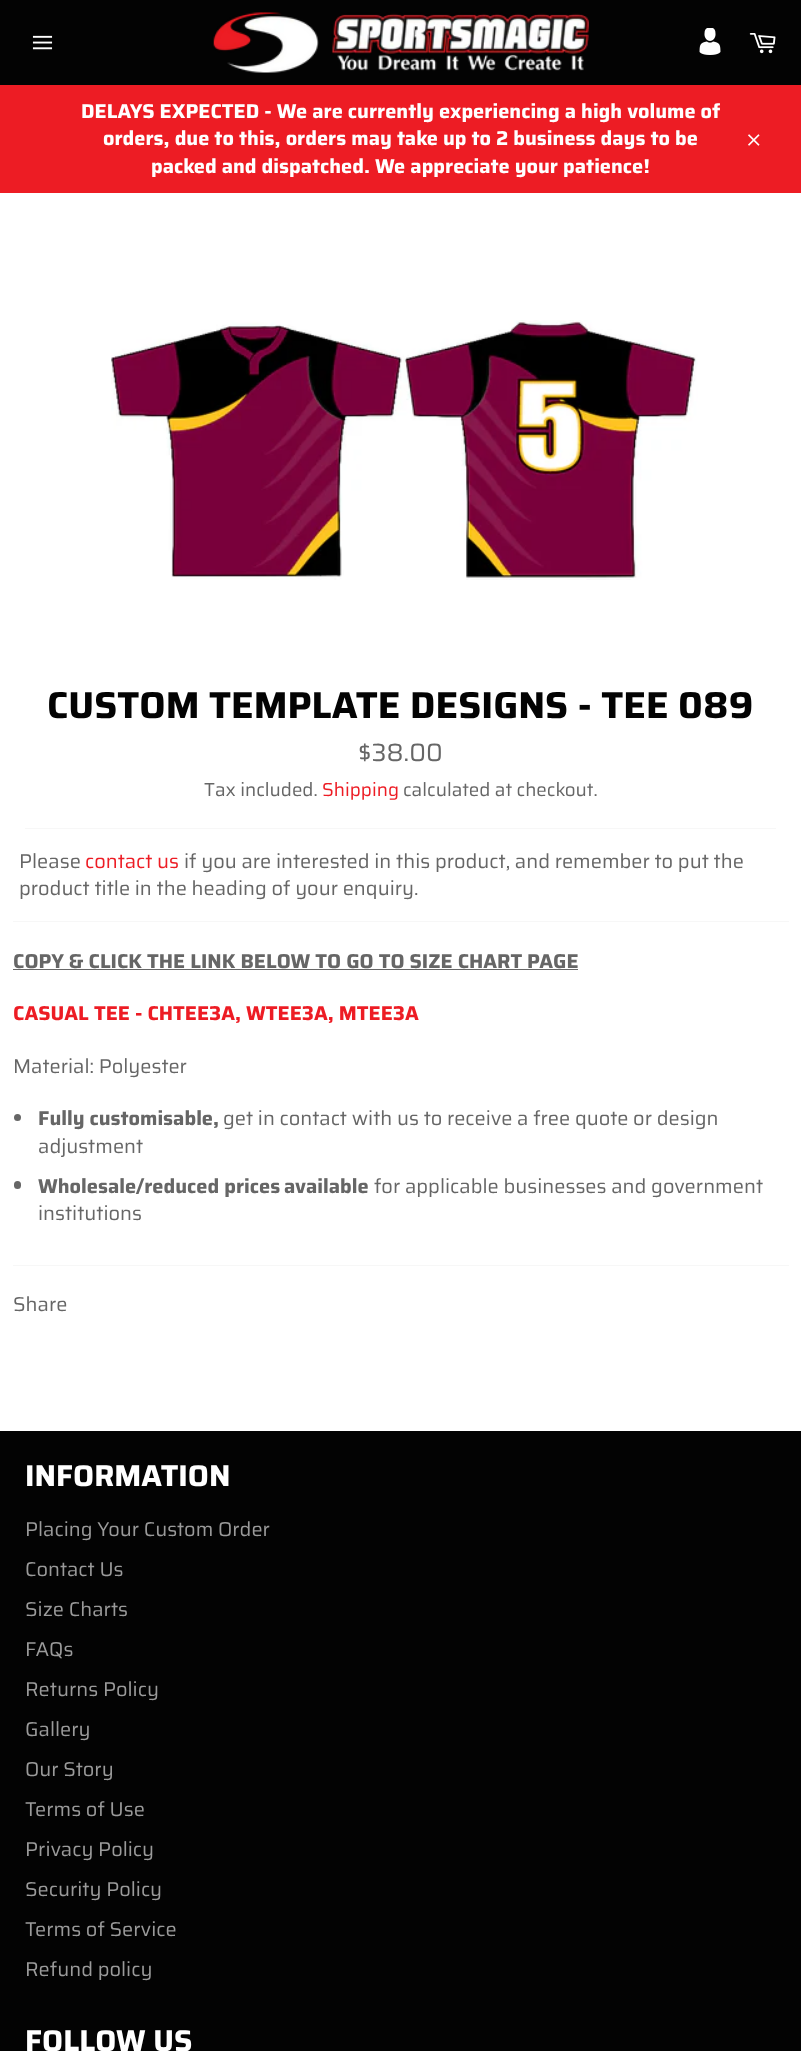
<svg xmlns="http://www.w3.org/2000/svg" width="801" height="2051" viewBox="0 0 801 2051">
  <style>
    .t1 { font: bold 20px Saira; fill: #fff; }
    .t2 { font: bold 37.5px Saira; fill: #030303; }
    .t3 { font: 25px Saira; fill: #666; }
    .t4 { font: 18.75px Saira; fill: #666; }
    .t5 { font: 18.75px Saira; fill: #ed1c24; }
    .t6 { font: 20px Saira; fill: #666; }
    .t7 { font: 20px Saira; fill: #ed1c24; }
    .t8 { font: bold 20px Saira; fill: #666; }
    .t9 { font: bold 20px Saira; fill: #ed1c24; }
    .t10 { font: bold 30px Saira; fill: #fff; }
    .t11 { font: 20px Saira; fill: #9a9a9a; }
  </style>
  <rect width="100%" height="100%" fill="#030303"/>
  <image x="32" y="35" width="21" height="15" href="images/1.png"/>
  <image x="213" y="12" width="376" height="61" href="images/2.png"/>
  <image x="699" y="28" width="22" height="27" href="images/3.png"/>
  <image x="749" y="33" width="27" height="21" href="images/4.png"/>
  <rect x="0" y="85" width="801" height="108" fill="#ed1c24"/>
  <text x="81" y="118" class="t1">DELAYS EXPECTED - We are currently experiencing a high volume of</text>
  <text x="103" y="145" class="t1">orders, due to this, orders may take up to 2 business days to be</text>
  <text x="151" y="173" class="t1">packed and dispatched. We appreciate your patience!</text>
  <image x="748" y="134" width="12" height="12" href="images/5.png"/>
  <rect x="0" y="193" width="801" height="1238" fill="#fff"/>
  <image x="111" y="320" width="587" height="260" href="images/6.png"/>
  <text x="47" y="718" class="t2">CUSTOM TEMPLATE DESIGNS - TEE 089</text>
  <text x="358" y="761" class="t3">$38.00</text>
  <text x="204" y="796" class="t4">Tax included.</text>
  <text x="322" y="796" class="t5">Shipping</text>
  <text x="403" y="796" class="t4">calculated at checkout.</text>
  <rect x="25" y="828" width="751" height="1" fill="#f7f7f7"/>
  <text x="19" y="868" class="t6">Please</text>
  <text x="85" y="868" class="t7">contact us</text>
  <text x="184" y="868" class="t6">if you are interested in this product, and remember to put the</text>
  <text x="19" y="895" class="t6">product title in the heading of your enquiry.</text>
  <rect x="13" y="921" width="776" height="1" fill="#f7f7f7"/>
  <text x="13" y="968" class="t8">COPY &amp; CLICK THE LINK BELOW TO GO TO SIZE CHART PAGE</text>
  <rect x="13" y="969" width="565" height="1" fill="#666"/>
  <text x="13" y="1020" class="t9">CASUAL TEE - CHTEE3A, WTEE3A, MTEE3A</text>
  <text x="13" y="1073" class="t6">Material: Polyester</text>
  <circle cx="17.5" cy="1117.5" r="3.5" fill="#666"/>
  <text x="38" y="1125" class="t8">Fully customisable,</text>
  <text x="223" y="1125" class="t6">get in contact with us to receive a free quote or design</text>
  <text x="38" y="1153" class="t6">adjustment</text>
  <rect x="14" y="1181" width="7" height="8" rx="3.5" fill="#666"/>
  <text x="38" y="1193" class="t8">Wholesale/reduced prices</text>
  <text x="284" y="1193" class="t8">available</text>
  <text x="374" y="1193" class="t6">for applicable businesses and government</text>
  <text x="38" y="1220" class="t6">institutions</text>
  <rect x="13" y="1265" width="776" height="1" fill="#f7f7f7"/>
  <text x="13" y="1311" class="t6">Share</text>
  <text x="25" y="1486" class="t10">INFORMATION</text>
  <text x="25" y="1536" class="t11">Placing Your Custom Order</text>
  <text x="25" y="1576" class="t11">Contact Us</text>
  <text x="25" y="1616" class="t11">Size Charts</text>
  <text x="25" y="1656" class="t11">FAQs</text>
  <text x="25" y="1696" class="t11">Returns Policy</text>
  <text x="25" y="1736" class="t11">Gallery</text>
  <text x="25" y="1776" class="t11">Our Story</text>
  <text x="25" y="1816" class="t11">Terms of Use</text>
  <text x="25" y="1856" class="t11">Privacy Policy</text>
  <text x="25" y="1896" class="t11">Security Policy</text>
  <text x="25" y="1936" class="t11">Terms of Service</text>
  <text x="25" y="1976" class="t11">Refund policy</text>
  <text x="25" y="2051" class="t10">FOLLOW US</text>
</svg>
